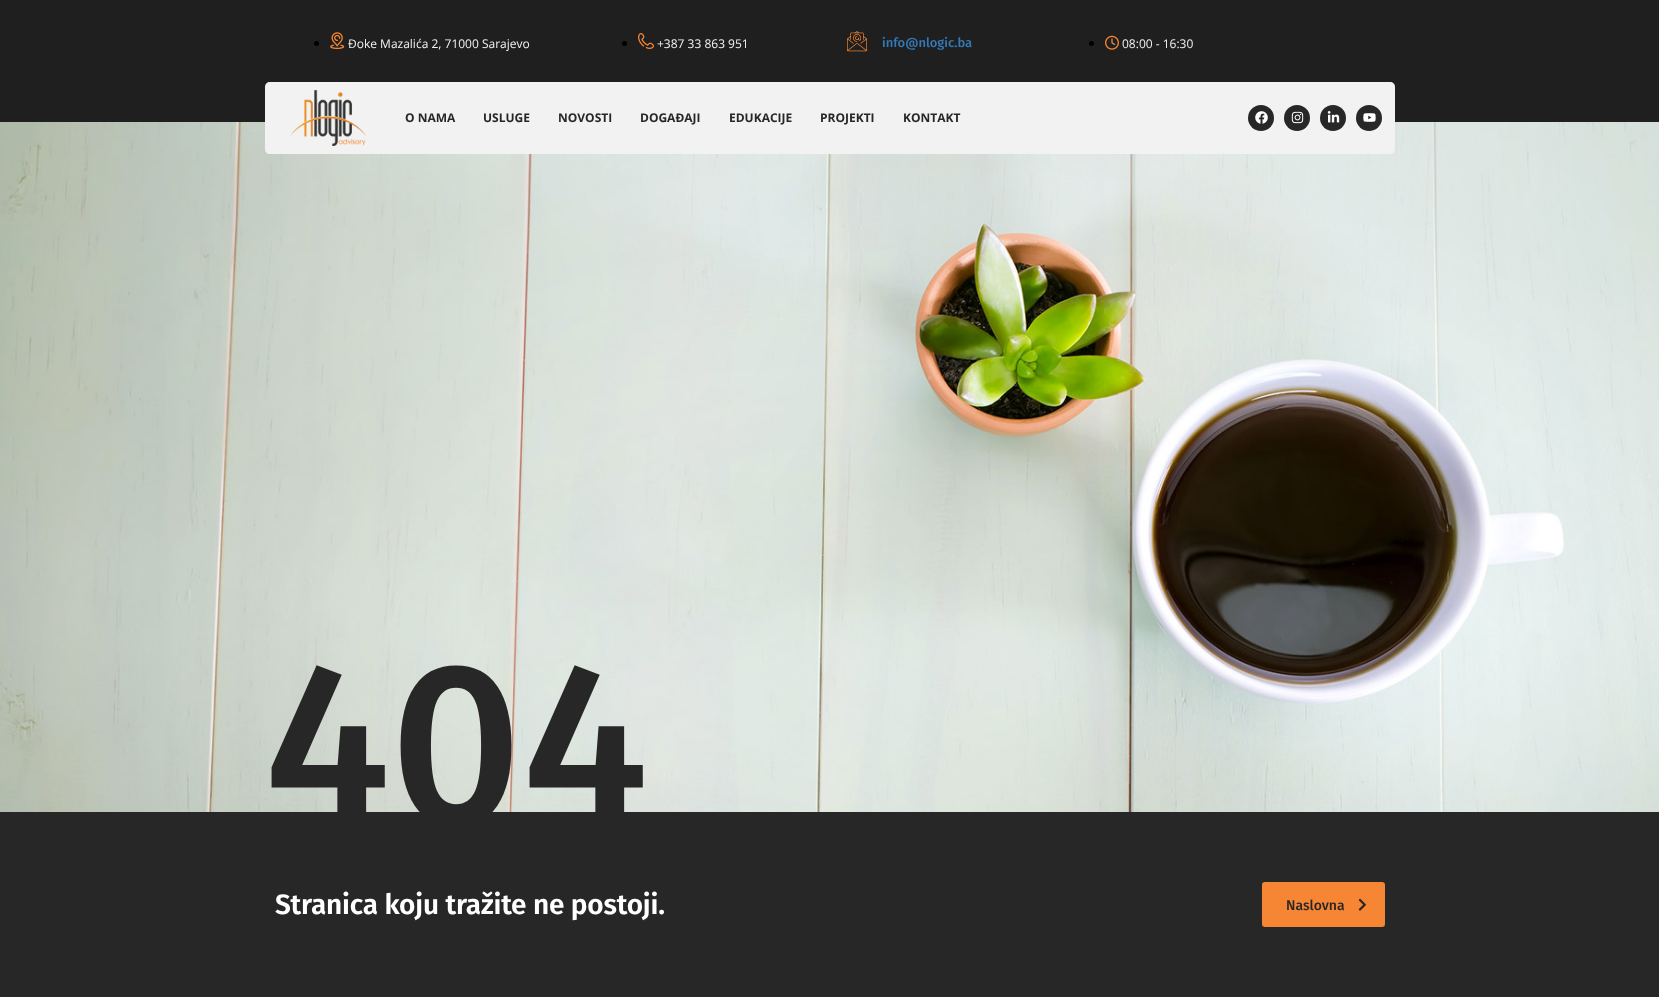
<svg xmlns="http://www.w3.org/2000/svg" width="1659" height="997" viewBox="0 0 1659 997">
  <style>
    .t1 { font: 12px Open Sans; fill: #f2f2f2; }
    .t2 { font: 500 13px Fira Sans; fill: #337ab7; }
    .t3 { font: bold 12px Open Sans; fill: #282727; }
    .t4 { font: 500 230px Fira Sans; letter-spacing: -0.2px; fill: #282727; }
    .t5 { font: 600 28px Fira Sans; letter-spacing: -0.2px; fill: #fff; }
    .t6 { font: 500 14px Fira Sans; fill: #282727; }
  </style>
  <rect width="100%" height="100%" fill="#fff"/>
  <image x="0" y="122" width="1659" height="690" href="images/1.png"/>
  <rect x="0" y="0" width="1659" height="122" fill="#201f1f"/>
  <circle cx="316.5" cy="43.5" r="2.5" fill="#000"/>
  <image x="330" y="32" width="15" height="18" href="images/2.png"/>
  <text x="348" y="48" class="t1">Đoke Mazalića 2, 71000 Sarajevo</text>
  <circle cx="624.5" cy="43.5" r="2.5" fill="#000"/>
  <image x="638" y="33" width="16" height="16" href="images/3.png"/>
  <text x="657" y="48" class="t1">+387 33 863 951</text>
  <image x="847" y="31" width="20" height="21" href="images/4.png"/>
  <text x="882" y="47" class="t2">info@nlogic.ba</text>
  <circle cx="1091.5" cy="43.5" r="2.5" fill="#000"/>
  <image x="1105" y="35" width="14" height="15" href="images/5.png"/>
  <text x="1122" y="48" class="t1">08:00 - 16:30</text>
  <path d="M270 82H391V154H270C267 154 265 152 265 149V87C265 84 267 82 270 82Z" fill="#f2f2f2"/>
  <image x="290" y="90" width="76" height="56" href="images/6.png"/>
  <rect x="391" y="82" width="857" height="72" fill="#f2f2f2"/>
  <text x="405" y="122" class="t3">O NAMA</text>
  <text x="483" y="122" class="t3">USLUGE</text>
  <text x="558" y="122" class="t3">NOVOSTI</text>
  <text x="640" y="122" class="t3">DOGAĐAJI</text>
  <text x="729" y="122" class="t3">EDUKACIJE</text>
  <text x="820" y="122" class="t3">PROJEKTI</text>
  <text x="903" y="122" class="t3">KONTAKT</text>
  <path d="M1248 82H1390C1393 82 1395 84 1395 87V149C1395 152 1393 154 1390 154H1248Z" fill="#f2f2f2"/>
  <circle cx="1261" cy="118" r="13" fill="#282727"/>
  <image x="1255" y="111" width="13" height="13" href="images/7.png"/>
  <circle cx="1297" cy="118" r="13" fill="#282727"/>
  <image x="1291" y="111" width="13" height="13" href="images/8.png"/>
  <circle cx="1333" cy="118" r="13" fill="#282727"/>
  <image x="1327" y="111" width="13" height="12" href="images/9.png"/>
  <circle cx="1369" cy="118" r="13" fill="#282727"/>
  <image x="1363" y="113" width="13" height="9" href="images/10.png"/>
  <rect x="0" y="812" width="1659" height="185" fill="#282727"/>
  <text x="264" y="823" class="t4">404</text>
  <text x="275" y="914" class="t5">Stranica koju tražite ne postoji.</text>
  <rect x="1263.5" y="883.5" width="120" height="42" rx="1.5" fill="#f68633" stroke="#f68633" stroke-width="3"/>
  <text x="1286" y="910" class="t6">Naslovna</text>
  <image x="1358" y="898" width="8" height="13" href="images/11.png"/>
</svg>
